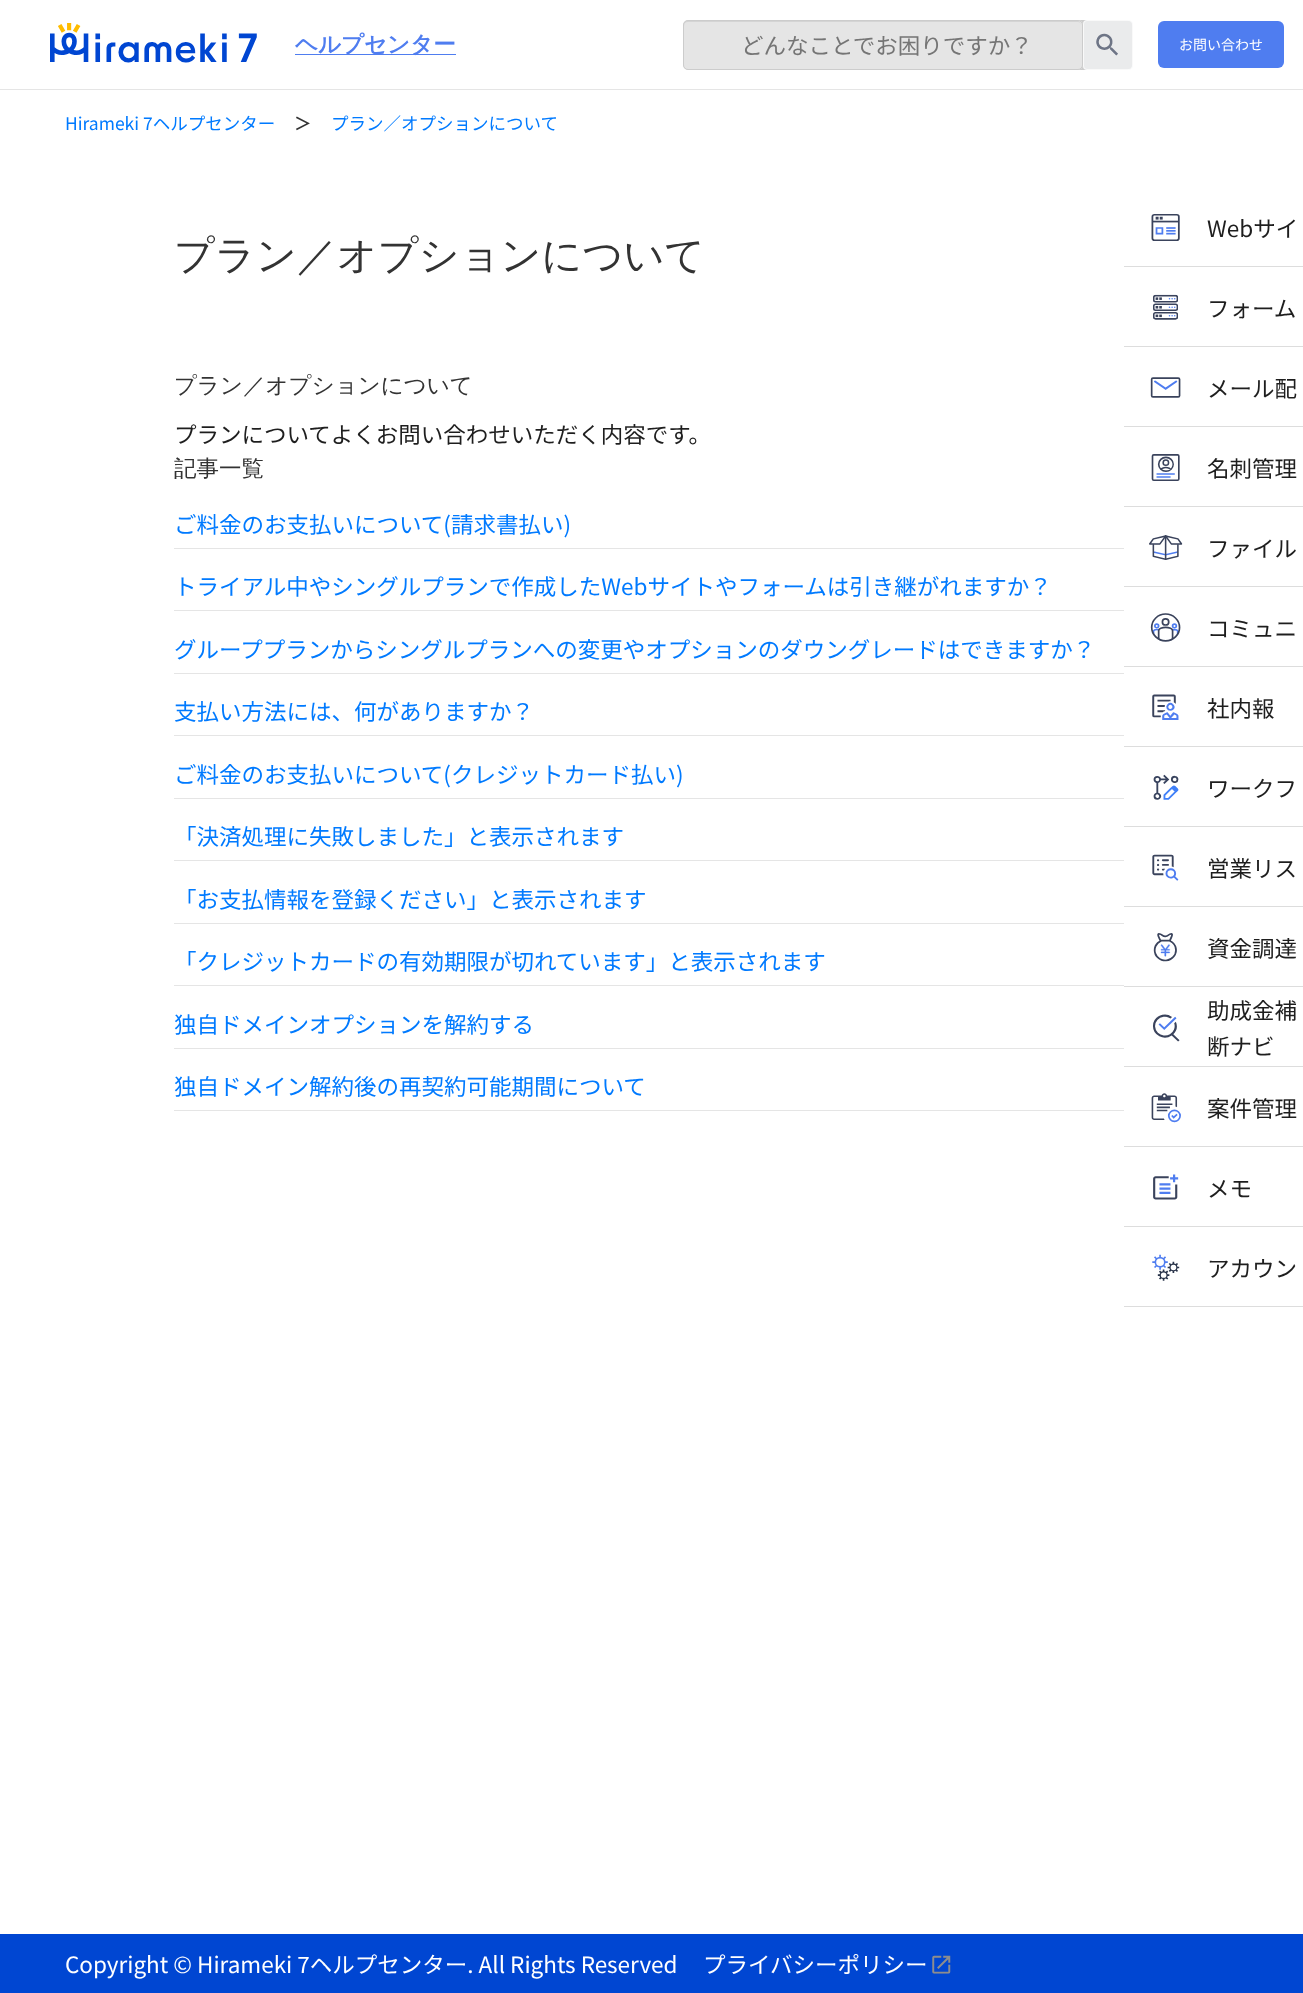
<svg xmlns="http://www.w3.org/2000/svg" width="1303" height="1993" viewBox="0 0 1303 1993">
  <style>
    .t1 { font: bold 22.5px WenQuanYi Zen Hei; fill: #4f7df0; }
    .t2 { font: 22.5px Noto Sans JP; fill: #757575; }
    .t3 { font: 14px Noto Sans JP; fill: #fff; }
    .t4 { font: 17.5px Noto Sans JP; fill: #007aff; }
    .t5 { font: 600 17.5px Noto Sans JP; fill: #333; }
    .t6 { font: 500 40px WenQuanYi Zen Hei; fill: #333; }
    .t7 { font: 500 22.5px WenQuanYi Zen Hei; fill: #333; }
    .t8 { font: 22.5px Noto Sans JP; fill: #1e1e1e; }
    .t9 { font: 22.5px Noto Sans JP; fill: #007aff; }
    .t10 { font: 22.5px Noto Sans JP; fill: #fff; }
  </style>
  <rect width="100%" height="100%" fill="#fff"/>
  <rect x="0" y="89" width="1303" height="1" fill="#e5e5e5"/>
  <image x="50" y="23" width="207" height="40" href="images/1.png"/>
  <rect x="295" y="54" width="161" height="1" fill="#4f7df0"/>
  <text x="295" y="52" class="t1">ヘルプセンター</text>
  <rect x="683" y="20" width="450" height="50" rx="6" fill="#ccc"/>
  <rect x="683" y="20" width="400" height="50" rx="5" fill="#e5e5e5"/>
  <path d="M688 22H1078C1080 22 1081 24 1081 26C1081 23 1080 21 1077 21H688C685 21 684 23 684 26C684 24 685 22 688 22Z" fill="#d4d4d4"/>
  <rect x="683.5" y="20.5" width="399" height="49" rx="4.5" fill="none" stroke="#ccc"/>
  <text x="741" y="54" class="t2">どんなことでお困りですか？</text>
  <rect x="1083" y="20" width="50" height="50" rx="4" fill="#f7f8f9b3"/>
  <image x="1096" y="33" width="22" height="23" href="images/2.png"/>
  <rect x="1083.5" y="20.5" width="49" height="49" rx="3.5" fill="none" stroke="#ffffffb3"/>
  <rect x="1158" y="21" width="126" height="47" rx="6" fill="#4f7df0"/>
  <text x="1179" y="50" class="t3">お問い合わせ</text>
  <text x="65" y="130" class="t4">Hirameki 7ヘルプセンター</text>
  <text x="294" y="130" class="t5">＞</text>
  <text x="331" y="130" class="t4">プラン／オプションについて</text>
  <text x="174" y="269" class="t6">プラン／オプションについて</text>
  <text x="174" y="393" class="t7">プラン／オプションについて</text>
  <text x="174" y="443" class="t8">プランについてよくお問い合わせいただく内容です。</text>
  <text x="174" y="476" class="t7">記事一覧</text>
  <rect x="174" y="548" width="950" height="1" fill="#e5e5e5"/>
  <text x="174" y="533" class="t9">ご料金のお支払いについて(請求書払い)</text>
  <rect x="174" y="610" width="950" height="1" fill="#e5e5e5"/>
  <text x="174" y="595" class="t9">トライアル中やシングルプランで作成したWebサイトやフォームは引き継がれますか？</text>
  <rect x="174" y="673" width="950" height="1" fill="#e5e5e5"/>
  <text x="174" y="658" class="t9">グループプランからシングルプランへの変更やオプションのダウングレードはできますか？</text>
  <rect x="174" y="735" width="950" height="1" fill="#e5e5e5"/>
  <text x="174" y="720" class="t9">支払い方法には、何がありますか？</text>
  <rect x="174" y="798" width="950" height="1" fill="#e5e5e5"/>
  <text x="174" y="783" class="t9">ご料金のお支払いについて(クレジットカード払い)</text>
  <rect x="174" y="860" width="950" height="1" fill="#e5e5e5"/>
  <text x="174" y="845" class="t9">「決済処理に失敗しました」と表示されます</text>
  <rect x="174" y="923" width="950" height="1" fill="#e5e5e5"/>
  <text x="174" y="908" class="t9">「お支払情報を登録ください」と表示されます</text>
  <rect x="174" y="985" width="950" height="1" fill="#e5e5e5"/>
  <text x="174" y="970" class="t9">「クレジットカードの有効期限が切れています」と表示されます</text>
  <rect x="174" y="1048" width="950" height="1" fill="#e5e5e5"/>
  <text x="174" y="1033" class="t9">独自ドメインオプションを解約する</text>
  <rect x="174" y="1110" width="950" height="1" fill="#e5e5e5"/>
  <text x="174" y="1095" class="t9">独自ドメイン解約後の再契約可能期間について</text>
  <rect x="1124" y="266" width="179" height="1" fill="#ddd"/>
  <image x="1151" y="214" width="29" height="27" href="images/3.png"/>
  <text x="1207" y="237" class="t8">Webサイ</text>
  <rect x="1124" y="346" width="179" height="1" fill="#ddd"/>
  <image x="1153" y="294" width="25" height="26" href="images/4.png"/>
  <text x="1207" y="317" class="t8">フォーム</text>
  <rect x="1124" y="426" width="179" height="1" fill="#ddd"/>
  <image x="1150" y="377" width="31" height="21" href="images/5.png"/>
  <text x="1207" y="397" class="t8">メール配</text>
  <rect x="1124" y="506" width="179" height="1" fill="#ddd"/>
  <image x="1151" y="454" width="29" height="27" href="images/6.png"/>
  <text x="1207" y="477" class="t8">名刺管理</text>
  <rect x="1124" y="586" width="179" height="1" fill="#ddd"/>
  <image x="1149" y="535" width="34" height="25" href="images/7.png"/>
  <text x="1207" y="557" class="t8">ファイル</text>
  <rect x="1124" y="666" width="179" height="1" fill="#ddd"/>
  <image x="1150" y="613" width="31" height="29" href="images/8.png"/>
  <text x="1207" y="637" class="t8">コミュニ</text>
  <rect x="1124" y="746" width="179" height="1" fill="#ddd"/>
  <image x="1152" y="694" width="27" height="26" href="images/9.png"/>
  <text x="1207" y="717" class="t8">社内報</text>
  <rect x="1124" y="826" width="179" height="1" fill="#ddd"/>
  <image x="1153" y="774" width="26" height="26" href="images/10.png"/>
  <text x="1207" y="797" class="t8">ワークフ</text>
  <rect x="1124" y="906" width="179" height="1" fill="#ddd"/>
  <image x="1152" y="854" width="27" height="27" href="images/11.png"/>
  <text x="1207" y="877" class="t8">営業リス</text>
  <rect x="1124" y="986" width="179" height="1" fill="#ddd"/>
  <image x="1153" y="933" width="24" height="29" href="images/12.png"/>
  <text x="1207" y="957" class="t8">資金調達</text>
  <rect x="1124" y="1066" width="179" height="1" fill="#ddd"/>
  <image x="1153" y="1014" width="27" height="28" href="images/13.png"/>
  <text x="1207" y="1019" class="t8">助成金補</text>
  <text x="1207" y="1055" class="t8">断ナビ</text>
  <rect x="1124" y="1146" width="179" height="1" fill="#ddd"/>
  <image x="1151" y="1093" width="30" height="30" href="images/14.png"/>
  <text x="1207" y="1117" class="t8">案件管理</text>
  <rect x="1124" y="1226" width="179" height="1" fill="#ddd"/>
  <image x="1153" y="1174" width="26" height="26" href="images/15.png"/>
  <text x="1207" y="1197" class="t8">メモ</text>
  <rect x="1124" y="1306" width="179" height="1" fill="#ddd"/>
  <image x="1152" y="1254" width="28" height="27" href="images/16.png"/>
  <text x="1207" y="1277" class="t8">アカウン</text>
  <rect x="0" y="1934" width="1303" height="59" fill="#0046d2"/>
  <text x="65" y="1973" class="t10">Copyright © Hirameki 7ヘルプセンター. All Rights Reserved</text>
  <text x="703" y="1973" class="t10">プライバシーポリシー</text>
  <image x="932" y="1955" width="19" height="19" href="images/17.png"/>
</svg>
